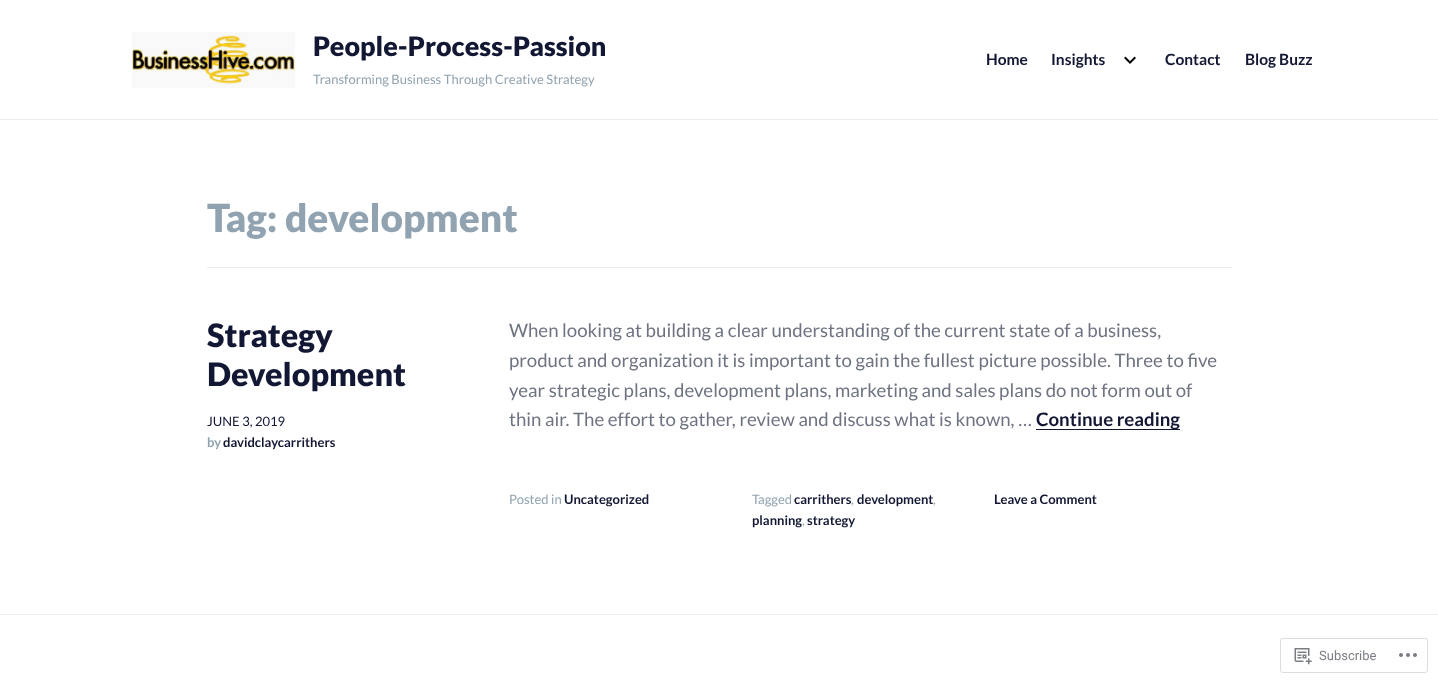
<svg xmlns="http://www.w3.org/2000/svg" width="1438" height="683" viewBox="0 0 1438 683">
  <style>
    .t1 { font: 900 26.9px Lato; fill: #121733; }
    .t2 { font: 13px Lato; fill: #91a3b0; }
    .t3 { font: bold 15.5px Lato; fill: #121733; }
    .t4 { font: 900 38.75px Lato; fill: #91a3b0; }
    .t5 { font: 900 32.25px Lato; fill: #121733; }
    .t6 { font: 13px Lato; fill: #121733; }
    .t7 { font: bold 13px Lato; fill: #91a3b0; }
    .t8 { font: bold 13px Lato; fill: #121733; }
    .t9 { font: 18.65px Lato; fill: #6e7381; }
    .t10 { font: bold 18.65px Lato; fill: #121733; }
    .t11 { font: 13px Roboto; fill: #7b7f85; }
  </style>
  <rect width="100%" height="100%" fill="#fff"/>
  <rect x="0" y="119" width="1438" height="1" fill="#e8ecf1"/>
  <image x="132" y="32" width="163" height="56" href="images/1.png"/>
  <text x="313" y="56" class="t1">People-Process-Passion</text>
  <text x="313" y="84" class="t2">Transforming Business Through Creative Strategy</text>
  <text x="986" y="65" class="t3">Home</text>
  <text x="1051" y="65" class="t3">Insights</text>
  <image x="1124" y="56" width="12" height="8" href="images/2.png"/>
  <text x="1165" y="65" class="t3">Contact</text>
  <text x="1245" y="65" class="t3">Blog Buzz</text>
  <rect x="207" y="267" width="1025" height="1" fill="#e8ecf1"/>
  <text x="207" y="232" class="t4">Tag: development</text>
  <text x="207" y="347" class="t5">Strategy</text>
  <text x="207" y="386" class="t5">Development</text>
  <text x="207" y="426" class="t6">JUNE 3, 2019</text>
  <text x="207" y="447" class="t7">by</text>
  <text x="223" y="447" class="t8">davidclaycarrithers</text>
  <text x="509" y="337" class="t9">When looking at building a clear understanding of the current state of a business,</text>
  <text x="509" y="367" class="t9">product and organization it is important to gain the fullest picture possible. Three to five</text>
  <text x="509" y="397" class="t9">year strategic plans, development plans, marketing and sales plans do not form out of</text>
  <text x="509" y="426" class="t9">thin air. The effort to gather, review and discuss what is known, …</text>
  <rect x="1036" y="429" width="144" height="1" fill="#121733"/>
  <text x="1036" y="426" class="t10">Continue reading</text>
  <text x="509" y="504" class="t2">Posted in</text>
  <text x="564" y="504" class="t8">Uncategorized</text>
  <text x="752" y="504" class="t2">Tagged</text>
  <text x="794" y="504" class="t8">carrithers</text>
  <text x="851" y="504" class="t2">,</text>
  <text x="857" y="504" class="t8">development</text>
  <text x="933" y="504" class="t2">,</text>
  <text x="752" y="525" class="t8">planning</text>
  <text x="802" y="525" class="t2">,</text>
  <text x="807" y="525" class="t8">strategy</text>
  <text x="994" y="504" class="t8">Leave a Comment</text>
  <rect x="0" y="614" width="1438" height="1" fill="#e8ecf1"/>
  <rect x="1280.5" y="638.5" width="147" height="34" rx="2.5" fill="none" stroke="#dddddf"/>
  <image x="1294" y="648" width="18" height="17" href="images/3.png"/>
  <text x="1319" y="660" class="t11">Subscribe</text>
  <image x="1399" y="653" width="18" height="4" href="images/4.png"/>
</svg>
